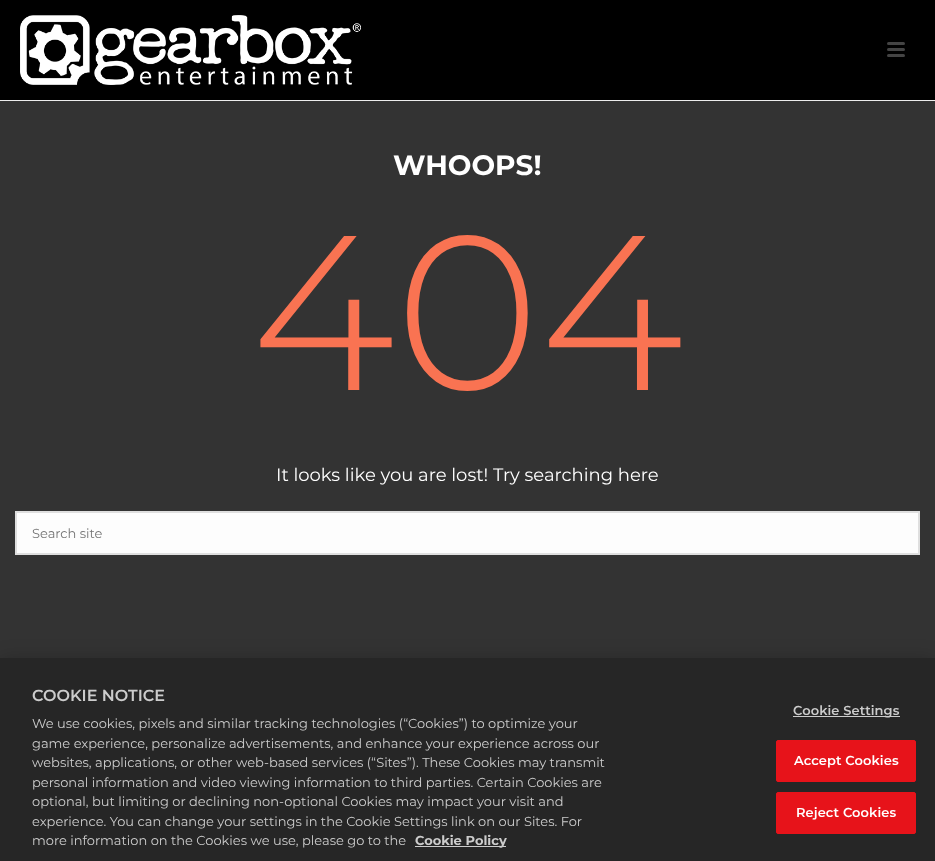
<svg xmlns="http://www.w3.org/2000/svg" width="935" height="861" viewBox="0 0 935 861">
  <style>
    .t1 { font: bold 28px Montserrat; fill: #fff; }
    .t2 { font: 300 220px Montserrat; fill: #f97352; }
    .t3 { font: 18px Montserrat; fill: #fff; }
    .t4 { font: 13px Montserrat; fill: #757575; }
    .t5 { font: 600 16px Montserrat; fill: #ccc; }
    .t6 { font: 13px Montserrat; fill: #ccc; }
    .t7 { font: bold 13px Montserrat; fill: #ccc; }
    .t8 { font: 600 13px Montserrat; letter-spacing: 0.1px; fill: #ccc; }
    .t9 { font: 600 13px Montserrat; letter-spacing: 0.1px; fill: #fff; }
  </style>
  <rect width="100%" height="100%" fill="#333"/>
  <rect x="0" y="100" width="935" height="1" fill="#ededed"/>
  <rect x="0" y="0" width="935" height="100" fill="#000"/>
  <image x="20" y="15" width="341" height="70" href="images/1.png"/>
  <rect x="887" y="42" width="18" height="3" rx="1.5" fill="#444"/>
  <rect x="887" y="48" width="18" height="3" rx="1.5" fill="#444"/>
  <rect x="887" y="54" width="18" height="3" rx="1.5" fill="#444"/>
  <text x="393" y="175" class="t1">WHOOPS!</text>
  <text x="251" y="390" class="t2">404</text>
  <text x="276" y="481" class="t3">It looks like you are lost! Try searching here</text>
  <rect x="16" y="512" width="903" height="42" fill="#fdfdfd" stroke="#dfdfdf" stroke-width="2"/>
  <text x="32" y="538" class="t4">Search site</text>
  <rect x="0" y="658" width="935" height="203" fill="#00000033" filter="blur(9px)"/>
  <rect x="0" y="658" width="935" height="203" fill="#262626"/>
  <text x="32" y="701" class="t5">COOKIE NOTICE</text>
  <text x="32" y="728" class="t6">We use cookies, pixels and similar tracking technologies (“Cookies”) to optimize your</text>
  <text x="32" y="748" class="t6">game experience, personalize advertisements, and enhance your experience across our</text>
  <text x="32" y="767" class="t6">websites, applications, or other web-based services (“Sites”). These Cookies may transmit</text>
  <text x="32" y="787" class="t6">personal information and video viewing information to third parties. Certain Cookies are</text>
  <text x="32" y="806" class="t6">optional, but limiting or declining non-optional Cookies may impact your visit and</text>
  <text x="32" y="826" class="t6">experience. You can change your settings in the Cookie Settings link on our Sites. For</text>
  <text x="32" y="845" class="t6">more information on the Cookies we use, please go to the</text>
  <rect x="415" y="846" width="91" height="1" fill="#ccc"/>
  <text x="415" y="845" class="t7">Cookie Policy</text>
  <rect x="793" y="716" width="107" height="1" fill="#ccc"/>
  <text x="793" y="715" class="t8">Cookie Settings</text>
  <rect x="776.5" y="740.5" width="139" height="41" rx="1.5" fill="#e7131a" stroke="#e7131a"/>
  <text x="794" y="765" class="t9">Accept Cookies</text>
  <rect x="776.5" y="792.5" width="139" height="41" rx="1.5" fill="#e7131a" stroke="#e7131a"/>
  <text x="796" y="817" class="t9">Reject Cookies</text>
</svg>
